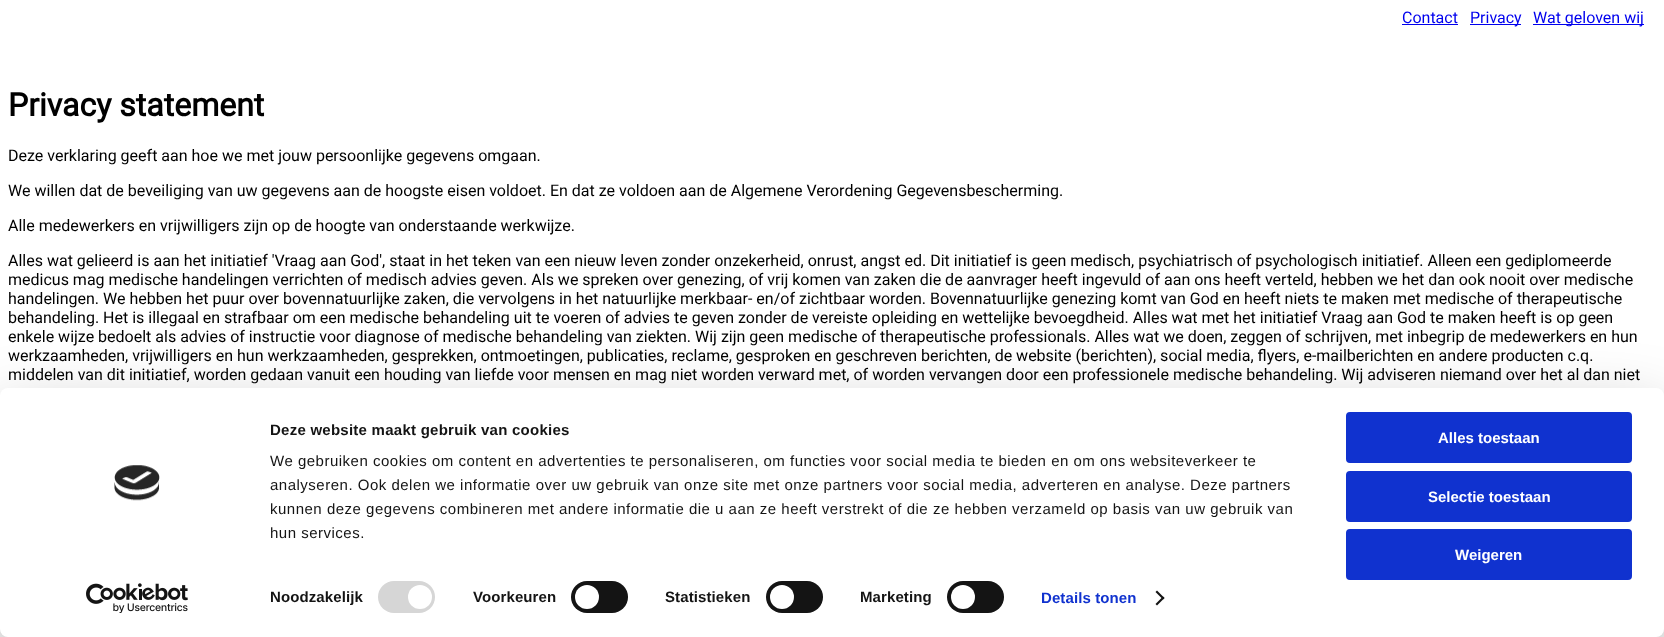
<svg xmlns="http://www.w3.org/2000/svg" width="1664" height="637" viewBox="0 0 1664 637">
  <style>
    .t1 { font: 16px Roboto; fill: #00e; }
    .t2 { font: bold 32px Roboto; fill: #000; }
    .t3 { font: 16px Roboto; fill: #000; }
    .t4 { font: bold 15px Liberation Sans; letter-spacing: 0.25px; fill: #141414; }
    .t5 { font: 15px Liberation Sans; letter-spacing: 0.5px; fill: #141414; }
    .t6 { font: bold 15px Liberation Sans; letter-spacing: 0.1px; fill: #141414; }
    .t7 { font: bold 15px Liberation Sans; letter-spacing: 0.1px; fill: #1032cf; }
    .t8 { font: bold 15px Liberation Sans; fill: #fff; }
  </style>
  <rect width="100%" height="100%" fill="#fff"/>
  <text x="1402" y="23" class="t1">Contact</text>
  <rect x="1402" y="24" width="56" height="1" fill="#00e"/>
  <rect x="1470" y="24" width="51" height="1" fill="#00e"/>
  <text x="1470" y="23" class="t1">Privacy</text>
  <rect x="1533" y="24" width="111" height="1" fill="#00e"/>
  <text x="1533" y="23" class="t1">Wat geloven wij</text>
  <text x="8" y="116" class="t2">Privacy statement</text>
  <text x="8" y="161" class="t3">Deze verklaring geeft aan hoe we met jouw persoonlijke gegevens omgaan.</text>
  <text x="8" y="196" class="t3">We willen dat de beveiliging van uw gegevens aan de hoogste eisen voldoet. En dat ze voldoen aan de Algemene Verordening Gegevensbescherming.</text>
  <text x="8" y="231" class="t3">Alle medewerkers en vrijwilligers zijn op de hoogte van onderstaande werkwijze.</text>
  <text x="8" y="266" class="t3">Alles wat gelieerd is aan het initiatief 'Vraag aan God', staat in het teken van een nieuw leven zonder onzekerheid, onrust, angst ed. Dit initiatief is geen medisch, psychiatrisch of psychologisch initiatief. Alleen een gediplomeerde</text>
  <text x="8" y="285" class="t3">medicus mag medische handelingen verrichten of medisch advies geven. Als we spreken over genezing, of vrij komen van zaken die de aanvrager heeft ingevuld of aan ons heeft verteld, hebben we het dan ook nooit over medische</text>
  <text x="8" y="304" class="t3">handelingen. We hebben het puur over bovennatuurlijke zaken, die vervolgens in het natuurlijke merkbaar- en/of zichtbaar worden. Bovennatuurlijke genezing komt van God en heeft niets te maken met medische of therapeutische</text>
  <text x="8" y="323" class="t3">behandeling. Het is illegaal en strafbaar om een medische behandeling uit te voeren of advies te geven zonder de vereiste opleiding en wettelijke bevoegdheid. Alles wat met het initiatief Vraag aan God te maken heeft is op geen</text>
  <text x="8" y="342" class="t3">enkele wijze bedoelt als advies of instructie voor diagnose of medische behandeling van ziekten. Wij zijn geen medische of therapeutische professionals. Alles wat we doen, zeggen of schrijven, met inbegrip de medewerkers en hun</text>
  <text x="8" y="361" class="t3">werkzaamheden, vrijwilligers en hun werkzaamheden, gesprekken, ontmoetingen, publicaties, reclame, gesproken en geschreven berichten, de website (berichten), social media, flyers, e-mailberichten en andere producten c.q.</text>
  <text x="8" y="380" class="t3">middelen van dit initiatief, worden gedaan vanuit een houding van liefde voor mensen en mag niet worden verward met, of worden vervangen door een professionele medische behandeling. Wij adviseren niemand over het al dan niet</text>
  <rect x="0" y="418" width="1664" height="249" rx="8" fill="#0000004d" filter="blur(35px)"/>
  <rect x="0" y="388" width="1664" height="249" rx="8" fill="#fff"/>
  <image x="114" y="465" width="46" height="36" href="images/1.png"/>
  <image x="86" y="583" width="102" height="30" href="images/2.png"/>
  <text x="270" y="435" class="t4">Deze website maakt gebruik van cookies</text>
  <text x="270" y="466" class="t5">We gebruiken cookies om content en advertenties te personaliseren, om functies voor social media te bieden en om ons websiteverkeer te</text>
  <text x="270" y="490" class="t5">analyseren. Ook delen we informatie over uw gebruik van onze site met onze partners voor social media, adverteren en analyse. Deze partners</text>
  <text x="270" y="514" class="t5">kunnen deze gegevens combineren met andere informatie die u aan ze heeft verstrekt of die ze hebben verzameld op basis van uw gebruik van</text>
  <text x="270" y="538" class="t5">hun services.</text>
  <text x="270" y="602" class="t6">Noodzakelijk</text>
  <rect x="378" y="581" width="57" height="32" rx="16" fill="#d6d6d6"/>
  <circle cx="420" cy="597" r="12" fill="#fff"/>
  <text x="473" y="602" class="t6">Voorkeuren</text>
  <rect x="571" y="581" width="57" height="32" rx="16" fill="#141414"/>
  <circle cx="587" cy="597" r="12" fill="#fff"/>
  <text x="665" y="602" class="t6">Statistieken</text>
  <rect x="766" y="581" width="57" height="32" rx="16" fill="#141414"/>
  <circle cx="782" cy="597" r="12" fill="#fff"/>
  <text x="860" y="602" class="t6">Marketing</text>
  <rect x="947" y="581" width="57" height="32" rx="16" fill="#141414"/>
  <circle cx="963" cy="597" r="12" fill="#fff"/>
  <text x="1041" y="603" class="t7">Details tonen</text>
  <path d="M1157 590.5L1164.5 598L1163 599.5L1155.5 592Z" fill="#141414"/>
  <path d="M1163 596.5L1164.5 598L1157 605.5L1155.5 604Z" fill="#141414"/>
  <rect x="1347" y="413" width="284" height="49" rx="3" fill="#1032cf" stroke="#1032cf" stroke-width="2"/>
  <text x="1438" y="443" class="t8">Alles toestaan</text>
  <rect x="1347" y="472" width="284" height="49" rx="3" fill="#1032cf" stroke="#1032cf" stroke-width="2"/>
  <text x="1428" y="502" class="t8">Selectie toestaan</text>
  <rect x="1347" y="530" width="284" height="49" rx="3" fill="#1032cf" stroke="#1032cf" stroke-width="2"/>
  <text x="1455" y="560" class="t8">Weigeren</text>
</svg>
